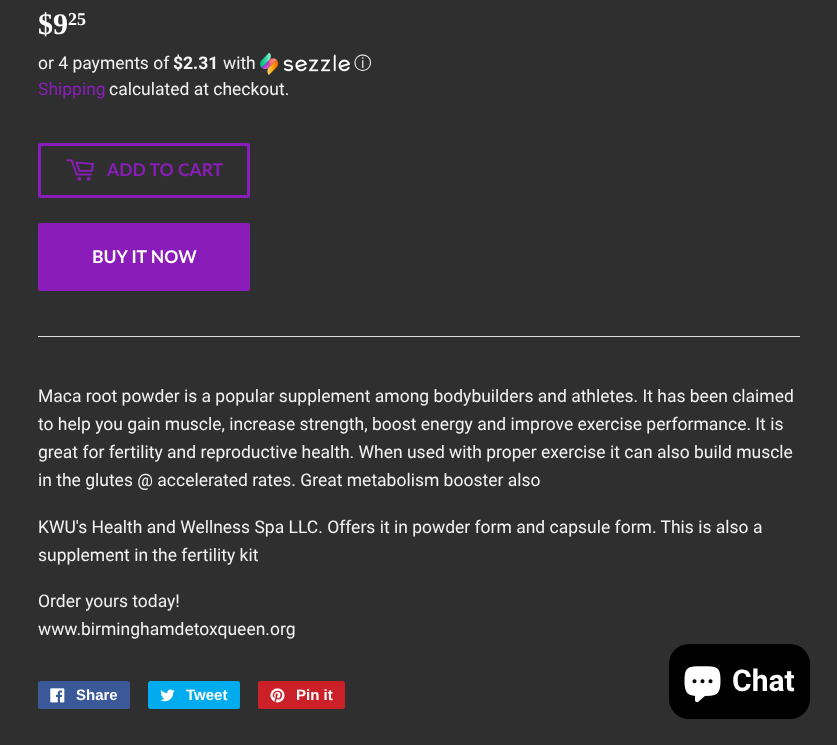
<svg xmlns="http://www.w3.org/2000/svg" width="837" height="745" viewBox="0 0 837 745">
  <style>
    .t1 { font: bold 30px Liberation Serif; fill: #fff; }
    .t2 { font: bold 18px Liberation Serif; fill: #fff; }
    .t3 { font: 17.5px Roboto; fill: #f3f3f3; }
    .t4 { font: bold 17.5px Roboto; fill: #f3f3f3; }
    .t5 { font: 500 17.5px WenQuanYi Zen Hei; fill: #f3f3f3; }
    .t6 { font: 17.5px Roboto; fill: #8a1db9; }
    .t7 { font: bold 17.5px Lato; fill: #8a1db9; }
    .t8 { font: bold 17.5px Lato; fill: #fff; }
    .t9 { font: bold 15px Liberation Sans; fill: #fff; }
    .t10 { font: bold 30px Roboto; fill: #fff; }
  </style>
  <rect width="100%" height="100%" fill="#2f2f2f"/>
  <text x="38" y="34" class="t1">$9</text>
  <text x="68" y="25" class="t2">25</text>
  <text x="38" y="69" class="t3">or 4 payments of</text>
  <text x="173" y="69" class="t4">$2.31</text>
  <text x="223" y="69" class="t3">with</text>
  <image x="260" y="53" width="90" height="22" href="images/1.png"/>
  <text x="354" y="69" class="t5">ⓘ</text>
  <text x="38" y="95" class="t6">Shipping</text>
  <text x="109" y="95" class="t3">calculated at checkout.</text>
  <rect x="39.5" y="144.5" width="209" height="52" rx="1" fill="none" stroke="#8a1db9" stroke-width="3"/>
  <image x="66" y="159" width="28" height="22" href="images/2.png"/>
  <text x="107" y="176" class="t7">ADD TO CART</text>
  <rect x="38" y="223" width="212" height="68" rx="2.5" fill="#8a1db9"/>
  <text x="92" y="263" class="t8">BUY IT NOW</text>
  <rect x="38" y="336" width="762" height="1" fill="#dedede"/>
  <text x="38" y="402" class="t3">Maca root powder is a popular supplement among bodybuilders and athletes. It has been claimed</text>
  <text x="38" y="430" class="t3">to help you gain muscle, increase strength, boost energy and improve exercise performance. It is</text>
  <text x="38" y="458" class="t3">great for fertility and reproductive health. When used with proper exercise it can also build muscle</text>
  <text x="38" y="486" class="t3">in the glutes @ accelerated rates. Great metabolism booster also</text>
  <text x="38" y="533" class="t3">KWU's Health and Wellness Spa LLC. Offers it in powder form and capsule form. This is also a</text>
  <text x="38" y="561" class="t3">supplement in the fertility kit</text>
  <text x="38" y="607" class="t3">Order yours today!</text>
  <text x="38" y="635" class="t3">www.birminghamdetoxqueen.org</text>
  <rect x="38" y="681" width="92" height="28" rx="2.5" fill="#3b5998"/>
  <image x="50" y="688" width="15" height="15" href="images/3.png"/>
  <text x="76" y="700" class="t9">Share</text>
  <rect x="148" y="681" width="92" height="28" rx="2.5" fill="#00aced"/>
  <image x="160" y="689" width="15" height="13" href="images/4.png"/>
  <text x="186" y="700" class="t9">Tweet</text>
  <rect x="258" y="681" width="87" height="28" rx="2.5" fill="#cb2027"/>
  <image x="270" y="688" width="15" height="15" href="images/5.png"/>
  <text x="296" y="700" class="t9">Pin it</text>
  <rect x="669" y="644" width="141" height="75" rx="20" fill="#000"/>
  <image x="684" y="666" width="37" height="37" href="images/6.png"/>
  <text x="732" y="691" class="t10">Chat</text>
</svg>
